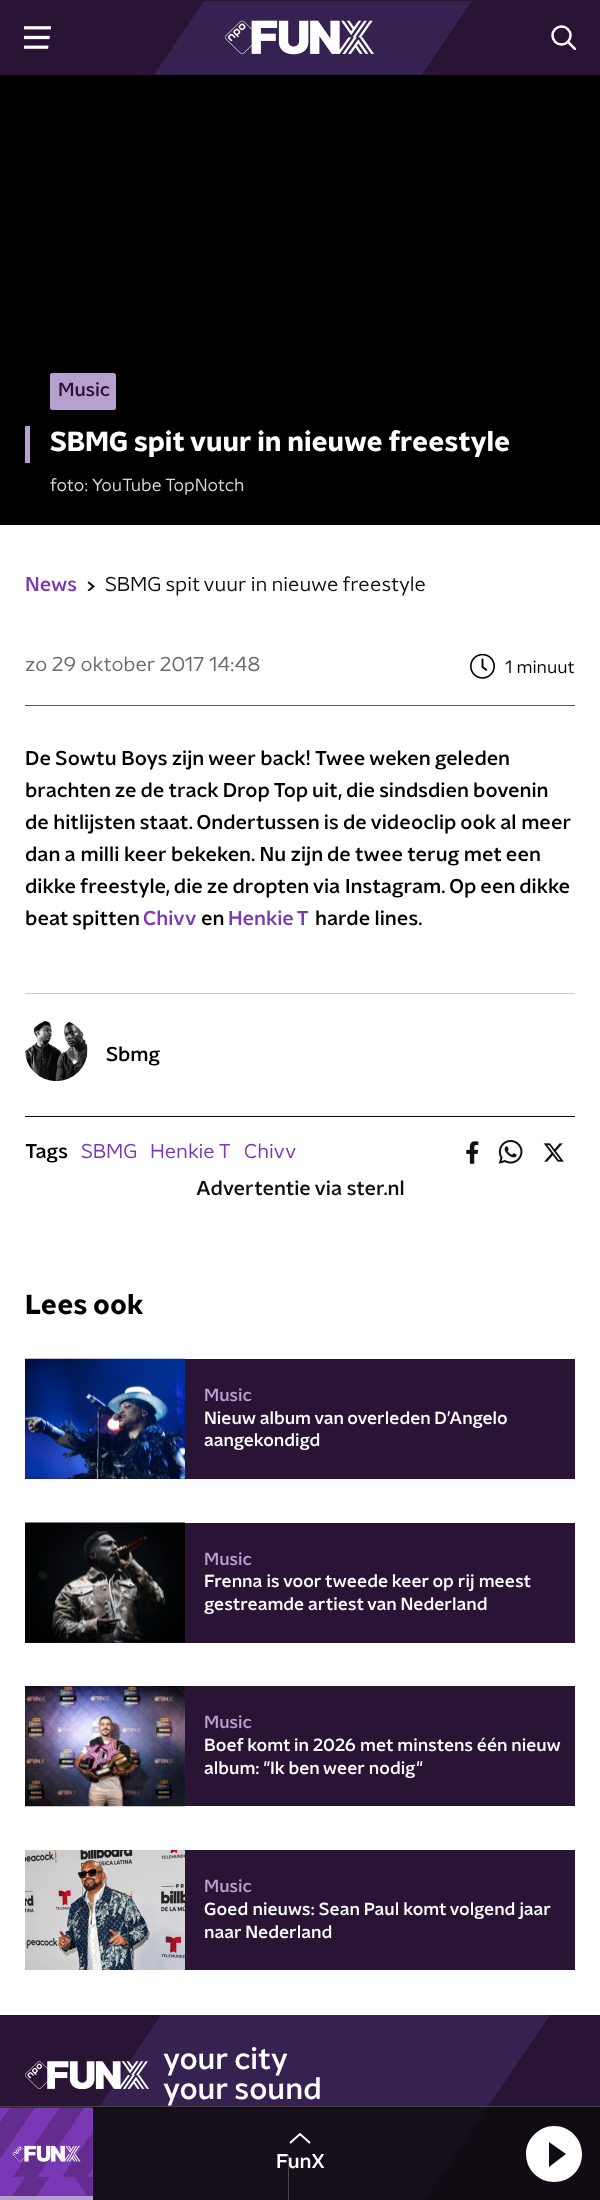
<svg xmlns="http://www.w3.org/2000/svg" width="600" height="2200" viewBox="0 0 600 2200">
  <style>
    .t1 { font: 500 19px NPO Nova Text; fill: #291436; }
    .t2 { font: bold 27.5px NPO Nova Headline; fill: #fff; }
    .t3 { font: 17.5px NPO Nova Text; fill: #d9d9d9; }
    .t4 { font: 500 20px NPO Nova Text; fill: #7b38b4; }
    .t5 { font: 20px NPO Nova Text; fill: #101010; }
    .t6 { font: 20px NPO Nova Text; fill: #6a6a6a; }
    .t7 { font: 17.5px NPO Nova Text; fill: #000; }
    .t8 { font: 500 20px NPO Nova Text; fill: #000; }
    .t9 { font: 20px NPO Nova Text; fill: #7b38b4; }
    .t10 { font: 500 20px NPO Nova Text; fill: #101010; }
    .t11 { font: bold 27.5px NPO Nova Headline; fill: #000; }
    .t12 { font: 500 17.5px NPO Nova Text; fill: #b79fcf; }
    .t13 { font: 500 17.5px NPO Nova Text; fill: #fff; }
    .t14 { font: 500 30px NPO Nova Text; fill: #fff; }
    .t15 { font: 500 20px NPO Nova Text; fill: #fff; }
  </style>
  <defs>
    <clipPath id="clip1"><rect x="0" y="0" width="600" height="75"/></clipPath>
    <clipPath id="clip2"><rect x="551" y="25" width="25" height="25"/></clipPath>
  </defs>
  <rect width="100%" height="100%" fill="#000"/>
  <rect x="0" y="0" width="600" height="75" fill="#291436"/>
  <g clip-path="url(#clip1)">
    <path d="M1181 539L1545 1H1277L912 539ZM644 539L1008 1H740L376 539ZM-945 1H-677L-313 539H-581ZM108 539L165 453L472 1H204L32 255L-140 1H-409L-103 453L-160 539Z" fill="#362250"/>
  </g>
  <image x="24" y="26" width="27" height="23" href="images/1.png"/>
  <image x="225" y="20" width="149" height="35" href="images/2.png"/>
  <circle cx="561.5" cy="35.5" r="9" fill="none" stroke="#fff" stroke-width="2.5"/>
  <g clip-path="url(#clip2)">
    <path d="M568 42L575.5 49.5" fill="none" stroke="#fff" stroke-width="2.5" stroke-linecap="square"/>
  </g>
  <rect x="50" y="373" width="66" height="37" rx="2.5" fill="#b79fcf"/>
  <text x="58" y="396" class="t1">Music</text>
  <rect x="25" y="426" width="5" height="37" fill="#b79fcf"/>
  <text x="50" y="451" class="t2">SBMG spit vuur in nieuwe freestyle</text>
  <text x="50" y="491" class="t3">foto:</text>
  <text x="92" y="491" class="t3">YouTube TopNotch</text>
  <rect x="0" y="525" width="600" height="1490" fill="#fff"/>
  <text x="25" y="591" class="t4">News</text>
  <image x="87" y="581" width="8" height="10" href="images/3.png"/>
  <text x="105" y="591" class="t5">SBMG spit vuur in nieuwe freestyle</text>
  <text x="25" y="671" class="t6">zo 29 oktober 2017 14:48</text>
  <rect x="25" y="705" width="550" height="1" fill="#7b38b4"/>
  <image x="470" y="654" width="25" height="25" href="images/4.png"/>
  <text x="505" y="673" class="t7">1 minuut</text>
  <text x="25" y="765" class="t8">De Sowtu Boys zijn weer back! Twee weken geleden</text>
  <text x="25" y="797" class="t8">brachten ze de track Drop Top uit, die sindsdien bovenin</text>
  <text x="25" y="829" class="t8">de hitlijsten staat. Ondertussen is de videoclip ook al meer</text>
  <text x="25" y="861" class="t8">dan a milli keer bekeken. Nu zijn de twee terug met een</text>
  <text x="25" y="893" class="t8">dikke freestyle, die ze dropten via Instagram. Op een dikke</text>
  <text x="25" y="925" class="t8">beat spitten</text>
  <text x="143" y="925" class="t4">Chivv</text>
  <text x="201" y="925" class="t8">en</text>
  <text x="228" y="925" word-spacing="-1" class="t4">Henkie T</text>
  <text x="315" y="925" class="t8">harde lines.</text>
  <rect x="25" y="993" width="550" height="1" fill="#ccc"/>
  <image x="25" y="1020" width="63" height="62" href="images/5.png"/>
  <text x="106" y="1061" class="t8">Sbmg</text>
  <rect x="25" y="1116" width="550" height="1" fill="#101010"/>
  <text x="25" y="1158" class="t8">Tags</text>
  <text x="81" y="1158" class="t9">SBMG</text>
  <text x="150" y="1158" class="t9">Henkie T</text>
  <text x="244" y="1158" class="t9">Chivv</text>
  <image x="466" y="1141" width="13" height="23" href="images/6.png"/>
  <image x="498" y="1140" width="25" height="24" href="images/7.png"/>
  <image x="543" y="1143" width="21" height="19" href="images/8.png"/>
  <text x="196" y="1195" class="t10">Advertentie via ster.nl</text>
  <text x="25" y="1314" class="t11">Lees ook</text>
  <rect x="25" y="1359" width="550" height="120" fill="#291436"/>
  <image x="25" y="1358" width="160" height="121" href="images/9.png"/>
  <text x="204" y="1401" class="t12">Music</text>
  <text x="204" y="1424" class="t13">Nieuw album van overleden D’Angelo</text>
  <text x="204" y="1446" class="t13">aangekondigd</text>
  <rect x="25" y="1523" width="550" height="120" fill="#291436"/>
  <image x="25" y="1522" width="160" height="121" href="images/10.png"/>
  <text x="204" y="1565" class="t12">Music</text>
  <text x="204" y="1587" class="t13">Frenna is voor tweede keer op rij meest</text>
  <text x="204" y="1610" class="t13">gestreamde artiest van Nederland</text>
  <rect x="25" y="1686" width="550" height="120" fill="#291436"/>
  <image x="25" y="1686" width="160" height="121" href="images/11.png"/>
  <text x="204" y="1728" class="t12">Music</text>
  <text x="204" y="1751" class="t13">Boef komt in 2026 met minstens één nieuw</text>
  <text x="204" y="1774" class="t13">album: "Ik ben weer nodig"</text>
  <rect x="185" y="1850" width="390" height="120" fill="#291436"/>
  <image x="25" y="1850" width="160" height="120" href="images/12.png"/>
  <text x="204" y="1892" class="t12">Music</text>
  <text x="204" y="1915" class="t13">Goed nieuws: Sean Paul komt volgend jaar</text>
  <text x="204" y="1938" class="t13">naar Nederland</text>
  <rect x="0" y="2015" width="600" height="185" fill="#291436"/>
  <path d="M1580 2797L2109 2015H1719L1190 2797ZM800 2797L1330 2015H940L411 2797ZM-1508 2015H-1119L-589 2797H-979ZM21 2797L105 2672L550 2015H161L-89 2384L-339 2015H-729L-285 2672L-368 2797Z" fill="#362250"/>
  <image x="25" y="2061" width="124" height="28" href="images/13.png"/>
  <text x="163" y="2069" class="t14">your city</text>
  <text x="163" y="2099" class="t14">your sound</text>
  <rect x="288" y="2155" width="1" height="45" fill="#fff"/>
  <rect x="0" y="2106" width="600" height="94" fill="#090909bf"/>
  <rect x="0" y="2106" width="600" height="1" fill="#5f5f5fa6"/>
  <rect x="92" y="2108" width="1" height="88" fill="#7b38b4"/>
  <image x="0" y="2107" width="93" height="89" href="images/14.png"/>
  <rect x="0" y="2196" width="93" height="4" fill="#b79fcf"/>
  <path d="M310 2143L300 2134L290 2143" fill="none" stroke="#fff" stroke-width="2"/>
  <text x="276" y="2168" class="t15">FunX</text>
  <path d="M554 2126C539 2126 526 2139 526 2154C526 2170 539 2182 554 2182C570 2182 582 2170 582 2154C582 2139 570 2126 554 2126ZM549 2167V2142L566 2154Z" fill="#fff"/>
</svg>
